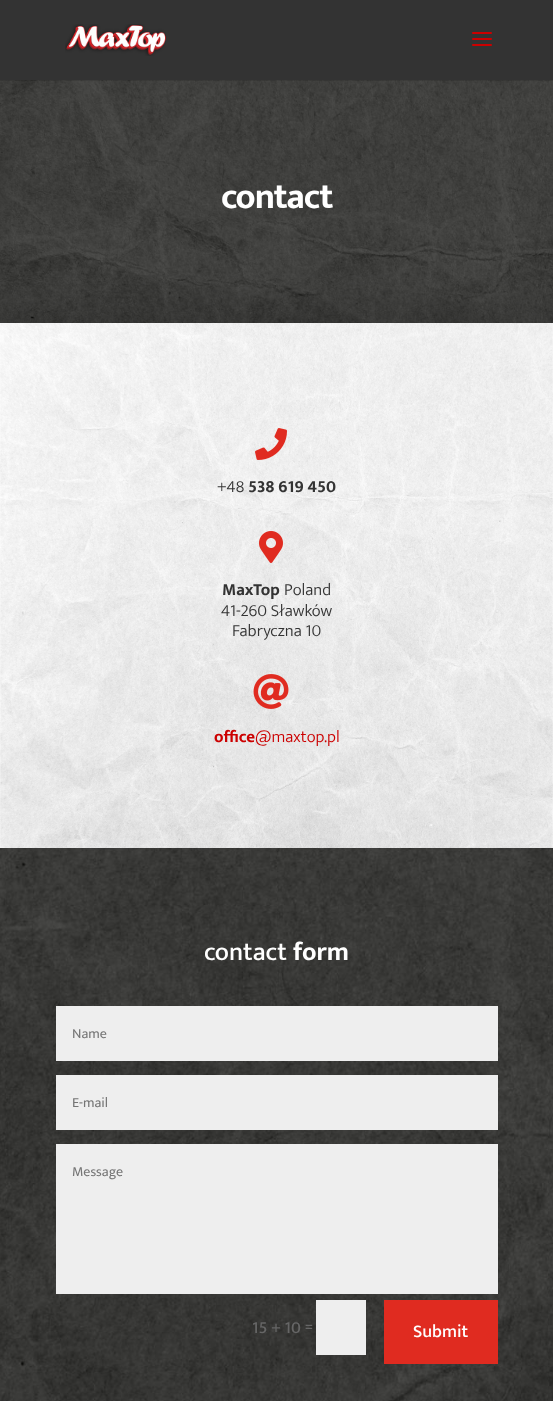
<svg xmlns="http://www.w3.org/2000/svg" width="553" height="1401" viewBox="0 0 553 1401">
  <style>
    .t1 { font: bold 36px Mukta; letter-spacing: -1px; fill: #fff; }
    .t2 { font: 300 17px Mukta; fill: #333; }
    .t3 { font: bold 17px Mukta; fill: #333; }
    .t4 { font: bold 17px Mukta; fill: #c00; }
    .t5 { font: 300 17px Mukta; fill: #c00; }
    .t6 { font: 500 26px Mukta; fill: #fff; }
    .t7 { font: bold 26px Mukta; fill: #fff; }
    .t8 { font: 14px Mukta; fill: #757575; }
    .t9 { font: 500 17px Mukta; fill: #666; }
    .t10 { font: 500 18px Mukta; fill: #fff; }
  </style>
  <rect width="100%" height="100%" fill="#fff"/>
  <image x="0" y="80" width="553" height="243" href="images/3.png"/>
  <rect x="0" y="80" width="553" height="1" fill="#0000001a"/>
  <rect x="0" y="0" width="553" height="80" fill="#333"/>
  <image x="65" y="24" width="101" height="32" href="images/1.png"/>
  <image x="472" y="32" width="20" height="14" href="images/2.png"/>
  <text x="221" y="208" class="t1">contact</text>
  <image x="0" y="323" width="553" height="525" href="images/4.png"/>
  <image x="255" y="428" width="32" height="32" href="images/5.png"/>
  <text x="217" y="492" class="t2">+48</text>
  <text x="248" y="492" class="t3">538 619 450</text>
  <image x="259" y="531" width="24" height="32" href="images/6.png"/>
  <text x="222" y="595" class="t3">MaxTop</text>
  <text x="284" y="595" class="t2">Poland</text>
  <text x="221" y="616" class="t2">41-260 Sławków</text>
  <text x="232" y="636" class="t2">Fabryczna 10</text>
  <image x="253" y="674" width="36" height="35" href="images/7.png"/>
  <text x="214" y="742" class="t4">office</text>
  <text x="255" y="742" class="t5">@maxtop.pl</text>
  <image x="0" y="848" width="553" height="553" href="images/8.png"/>
  <text x="204" y="960" class="t6">contact</text>
  <text x="293" y="960" class="t7">form</text>
  <rect x="56" y="1006" width="442" height="55" fill="#eee"/>
  <text x="72" y="1038" class="t8">Name</text>
  <rect x="56" y="1075" width="442" height="55" fill="#eee"/>
  <text x="72" y="1107" class="t8">E-mail</text>
  <rect x="56" y="1144" width="442" height="150" fill="#eee"/>
  <text x="72" y="1176" class="t8">Message</text>
  <text x="252" y="1333" class="t9">15 + 10</text>
  <text x="305" y="1332" class="t9">=</text>
  <rect x="316" y="1300" width="50" height="55" fill="#eee"/>
  <rect x="384" y="1300" width="114" height="64" fill="#e02b20"/>
  <text x="413" y="1337" class="t10">Submit</text>
</svg>
